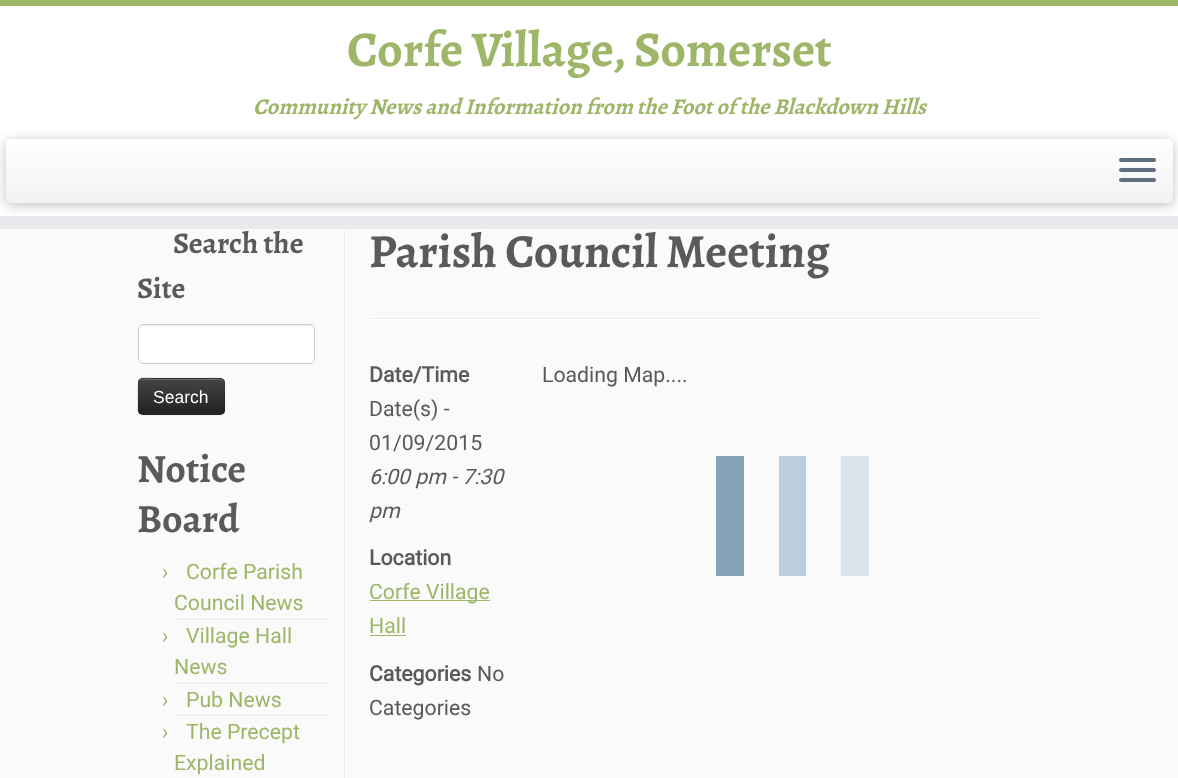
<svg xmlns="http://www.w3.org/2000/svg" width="1178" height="778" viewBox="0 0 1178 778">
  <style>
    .t1 { font: bold 50px Alegreya; fill: #9db668; }
    .t2 { font: italic bold 22.5px Alegreya; fill: #9db668; }
    .t3 { font: bold 30px Alegreya; fill: #5a5a5a; }
    .t4 { font: 17.5px Liberation Sans; fill: #fff; }
    .t5 { font: bold 40px Alegreya; fill: #5a5a5a; }
    .t6 { font: 21.25px Roboto; fill: #9db668; }
    .t7 { font: bold 47.5px Alegreya; fill: #5a5a5a; }
    .t8 { font: bold 21.25px Roboto; fill: #5a5a5a; }
    .t9 { font: 21.25px Roboto; fill: #5a5a5a; }
    .t10 { font: italic 21.25px Roboto; fill: #5a5a5a; }
  </style>
  <defs>
    <linearGradient id="g1" gradientUnits="userSpaceOnUse" x1="589" y1="139" x2="589" y2="203"><stop offset="0" stop-color="#fff"/><stop offset="1" stop-color="#f2f2f2"/></linearGradient>
    <clipPath id="clip1"><rect x="138" y="378" width="87" height="37" rx="5"/></clipPath>
    <linearGradient id="g2" gradientUnits="userSpaceOnUse" x1="181" y1="379" x2="181" y2="414"><stop offset="0" stop-color="#444"/><stop offset="1" stop-color="#222"/></linearGradient>
  </defs>
  <rect width="100%" height="100%" fill="#fafafa"/>
  <rect x="0" y="6" width="1178" height="210" fill="#fff"/>
  <rect x="0" y="0" width="1178" height="6" fill="#9db668"/>
  <rect x="0" y="216" width="1178" height="13" fill="#e9eaee"/>
  <text x="347" y="66" class="t1">Corfe Village, Somerset</text>
  <text x="253" y="114" class="t2">Community News and Information from the Foot of the Blackdown Hills</text>
  <rect x="6" y="141" width="1167" height="64" rx="5" fill="#00000040" filter="blur(6px)"/>
  <rect x="6" y="139" width="1167" height="64" rx="5" fill="url(#g1)"/>
  <rect x="1119" y="158" width="37" height="4" rx="2" fill="#5f6f81"/>
  <rect x="1119" y="168" width="37" height="4" rx="2" fill="#5f6f81"/>
  <rect x="1119" y="178" width="37" height="4" rx="2" fill="#5f6f81"/>
  <rect x="344" y="229" width="1" height="549" fill="#eee"/>
  <text x="173" y="253" class="t3">Search the</text>
  <text x="137" y="298" class="t3">Site</text>
  <rect x="138" y="324" width="177" height="40" rx="5" fill="#fff"/>
  <path d="M142 326H310C312 326 314 328 314 330V329C314 327 312 325 310 325H143C141 325 139 327 139 329V330C139 328 140 326 142 326Z" fill="#ececec"/>
  <rect x="138.5" y="324.5" width="176" height="39" rx="4.5" fill="none" stroke="#ccc"/>
  <rect x="138" y="379" width="87" height="37" rx="5" fill="#0000000d" filter="blur(1px)"/>
  <rect x="138" y="378" width="87" height="37" rx="5" fill="#363636"/>
  <g clip-path="url(#clip1)">
    <rect x="138" y="379" width="87" height="35" fill="url(#g2)"/>
  </g>
  <path d="M142 380H220C222 380 224 382 224 384C224 376 212 379 207 379H156C151 379 139 376 139 384C139 382 140 380 142 380Z" fill="#ffffff33"/>
  <path d="M223 413L220.5 414.5H142L139.5 413" fill="none" stroke="#00000040" stroke-width="1.2"/>
  <path d="M139.5 413C137.5 411 138 408 138 405.5V396C138 376 135 378 155.5 378H207C227.5 378 224.5 376 224.5 396V405.5C224.5 408 225 411 223 413" fill="none" stroke="#0000001a" stroke-width="1.2"/>
  <text x="153" y="403" class="t4">Search</text>
  <rect x="345" y="229" width="1" height="549" fill="#fff"/>
  <text x="137" y="482" class="t5">Notice</text>
  <text x="137" y="532" class="t5">Board</text>
  <rect x="175" y="619" width="156" height="1" fill="#eee"/>
  <text x="162" y="579" class="t6">›</text>
  <text x="186" y="579" class="t6">Corfe Parish</text>
  <text x="174" y="610" class="t6">Council News</text>
  <rect x="175" y="620" width="156" height="1" fill="#fff"/>
  <rect x="175" y="683" width="156" height="1" fill="#eee"/>
  <text x="162" y="643" class="t6">›</text>
  <text x="186" y="643" class="t6">Village Hall</text>
  <text x="174" y="674" class="t6">News</text>
  <rect x="175" y="684" width="156" height="1" fill="#fff"/>
  <rect x="175" y="715" width="156" height="1" fill="#eee"/>
  <text x="162" y="707" class="t6">›</text>
  <text x="186" y="707" class="t6">Pub News</text>
  <rect x="175" y="716" width="156" height="1" fill="#fff"/>
  <text x="162" y="739" class="t6">›</text>
  <text x="186" y="739" class="t6">The Precept</text>
  <text x="174" y="770" class="t6">Explained</text>
  <text x="369" y="267" class="t7">Parish Council Meeting</text>
  <rect x="370" y="318" width="673" height="1" fill="#eee"/>
  <rect x="370" y="319" width="673" height="1" fill="#fff"/>
  <text x="369" y="382" class="t8">Date/Time</text>
  <text x="369" y="416" class="t9">Date(s) -</text>
  <text x="369" y="450" class="t9">01/09/2015</text>
  <text x="369" y="484" class="t10">6:00 pm - 7:30</text>
  <text x="369" y="518" class="t10">pm</text>
  <text x="542" y="382" class="t9">Loading Map....</text>
  <rect x="716" y="456" width="28" height="120" fill="#85a2b6"/>
  <rect x="779" y="456" width="27" height="120" fill="#bbcedd"/>
  <rect x="841" y="456" width="28" height="120" fill="#dce4eb"/>
  <text x="369" y="565" class="t8">Location</text>
  <rect x="370" y="600" width="120" height="1" fill="#9db668"/>
  <text x="369" y="599" class="t6">Corfe Village</text>
  <text x="369" y="633" class="t6">Hall</text>
  <rect x="370" y="635" width="36" height="1" fill="#9db668"/>
  <text x="369" y="681" class="t8">Categories</text>
  <text x="477" y="681" class="t9">No</text>
  <text x="369" y="715" class="t9">Categories</text>
</svg>
